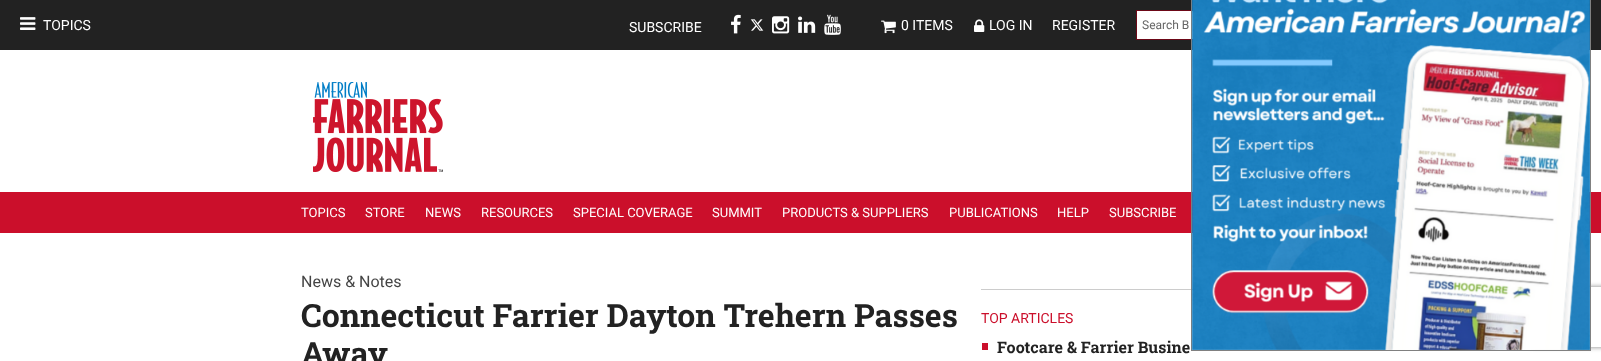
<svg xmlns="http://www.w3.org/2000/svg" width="1601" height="361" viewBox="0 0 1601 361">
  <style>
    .t1 { font: 14px Roboto; fill: #fff; }
    .t2 { font: 12px Roboto; fill: #666; }
    .t3 { font: 13px Roboto; fill: #fff; }
    .t4 { font: 16px Roboto; fill: #444; }
    .t5 { font: bold 32px Roboto Slab; fill: #222; }
    .t6 { font: 14px Roboto; fill: #cb0f2b; }
    .t7 { font: bold 16px Roboto Slab; fill: #222; }
  </style>
  <defs>
    <clipPath id="clip1"><path d="M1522 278H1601V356H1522ZM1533 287H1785C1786 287 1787 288 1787 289V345C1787 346 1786 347 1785 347H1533C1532 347 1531 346 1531 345V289C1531 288 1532 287 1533 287Z" clip-rule="evenodd"/></clipPath>
  </defs>
  <rect width="100%" height="100%" fill="#fff"/>
  <rect x="0" y="0" width="1601" height="50" fill="#222"/>
  <image x="20" y="17" width="16" height="13" href="images/1.png"/>
  <text x="43" y="30" class="t1">TOPICS</text>
  <text x="629" y="32" class="t1">SUBSCRIBE</text>
  <image x="731" y="14" width="10" height="20" href="images/2.png"/>
  <image x="750" y="19" width="14" height="12" href="images/3.png"/>
  <image x="772" y="16" width="18" height="18" href="images/4.png"/>
  <image x="798" y="16" width="18" height="17" href="images/5.png"/>
  <image x="824" y="14" width="17" height="21" href="images/6.png"/>
  <image x="881" y="20" width="15" height="14" href="images/7.png"/>
  <text x="901" y="30" class="t1">0 ITEMS</text>
  <image x="974" y="19" width="11" height="13" href="images/8.png"/>
  <text x="989" y="30" class="t1">LOG IN</text>
  <text x="1052" y="30" class="t1">REGISTER</text>
  <rect x="1137" y="11" width="56" height="28" fill="#fff"/>
  <rect x="1136.5" y="10.5" width="164" height="29" fill="none" stroke="#6c0817"/>
  <text x="1142" y="29" class="t2">Search B</text>
  <image x="313" y="82" width="130" height="90" href="images/9.png"/>
  <rect x="0" y="192" width="1601" height="41" fill="#cb0f2b"/>
  <text x="301" y="217" class="t3">TOPICS</text>
  <text x="365" y="217" class="t3">STORE</text>
  <text x="425" y="217" class="t3">NEWS</text>
  <text x="481" y="217" class="t3">RESOURCES</text>
  <text x="573" y="217" class="t3">SPECIAL COVERAGE</text>
  <text x="712" y="217" class="t3">SUMMIT</text>
  <text x="782" y="217" class="t3">PRODUCTS &amp; SUPPLIERS</text>
  <text x="949" y="217" class="t3">PUBLICATIONS</text>
  <text x="1057" y="217" class="t3">HELP</text>
  <text x="1109" y="217" class="t3">SUBSCRIBE</text>
  <text x="301" y="287" class="t4">News &amp; Notes</text>
  <text x="301" y="327" class="t5">Connecticut Farrier Dayton Trehern Passes</text>
  <text x="301" y="365" class="t5">Away</text>
  <rect x="981" y="289" width="212" height="1" fill="#ccc"/>
  <text x="981" y="323" class="t6">TOP ARTICLES</text>
  <rect x="982" y="343" width="6" height="7" fill="#cb0f2b"/>
  <text x="997" y="353" class="t7">Footcare &amp; Farrier Busine</text>
  <g clip-path="url(#clip1)">
    <rect x="1531" y="287" width="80" height="60" rx="2" fill="#808080" filter="blur(2.5px)"/>
  </g>
  <rect x="1191.5" y="-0.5" width="399" height="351" fill="none" stroke="#808080"/>
  <image x="1191" y="0" width="399" height="350" href="images/10.png"/>
</svg>
